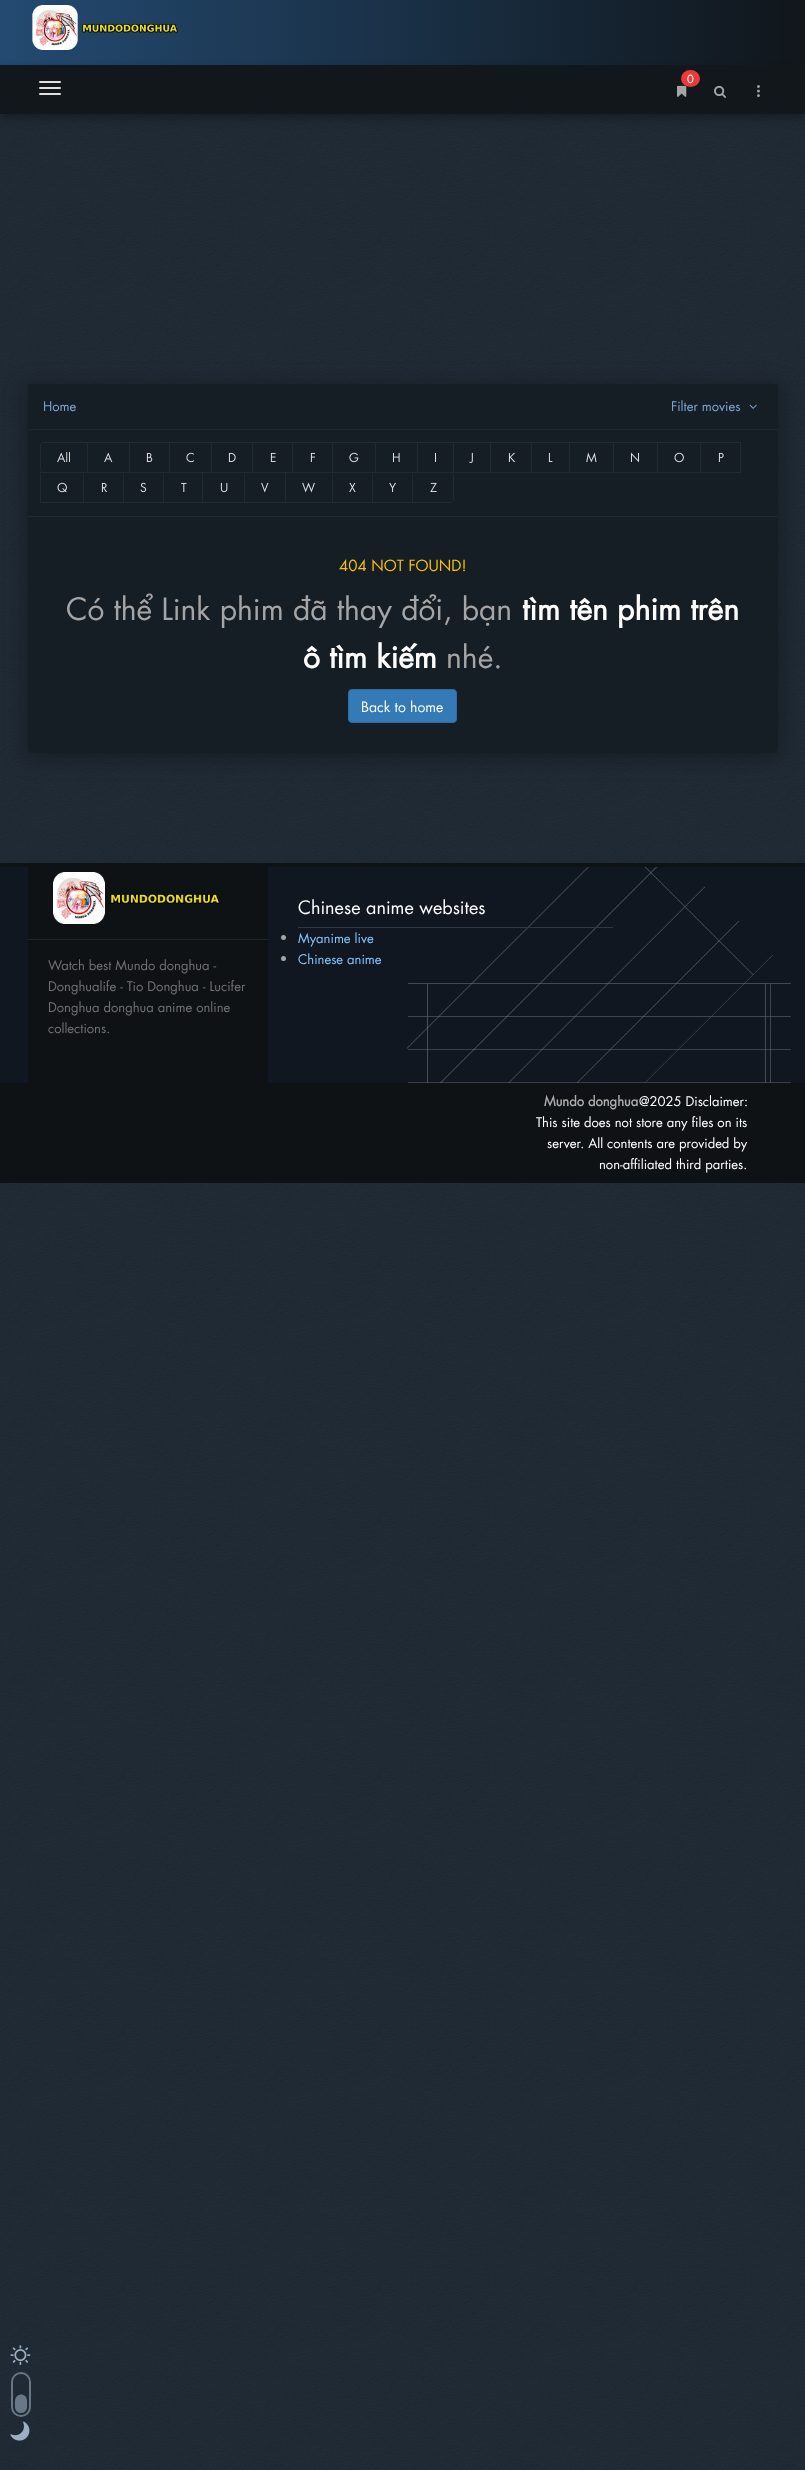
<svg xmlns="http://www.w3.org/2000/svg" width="805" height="2470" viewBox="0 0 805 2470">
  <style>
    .t1 { font: 11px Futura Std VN; fill: #fff; }
    .t2 { font: 13px Futura Std VN; fill: #7aa6ce; }
    .t3 { font: 15px Futura Std VN; fill: #f7c004; }
    .t4 { font: 30px Futura Std VN; fill: #a5a5a5; }
    .t5 { font: bold 30px Futura Std VN; fill: #fff; }
    .t6 { font: 14px Futura Std VN; fill: #fff; }
    .t7 { font: 18px Futura Std VN; fill: #fff; }
    .t8 { font: 13px Futura Std VN; fill: #87c3f9; }
    .t9 { font: 13px Futura Std VN; fill: #717171; }
    .t10 { font: bold 13px Futura Std VN; fill: #adadad; }
    .t11 { font: 13px Futura Std VN; fill: #fff; }
  </style>
  <defs>
    <linearGradient id="g1" gradientUnits="userSpaceOnUse" x1="0" y1="33" x2="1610" y2="32"><stop offset="0" stop-color="#234a71"/><stop offset="0.51" stop-color="#101519"/><stop offset="1" stop-color="#151d25"/></linearGradient>
  </defs>
  <rect width="100%" height="100%" fill="#222d38"/>
  <image x="0" y="114" width="805" height="2356" href="images/1.png"/>
  <rect x="0" y="0" width="805" height="65" fill="url(#g1)"/>
  <image x="32" y="5" width="146" height="45" href="images/2.png"/>
  <rect x="1" y="71" width="803" height="47" fill="#161d23" filter="blur(5px)"/>
  <rect x="0" y="65" width="805" height="49" fill="#12171b"/>
  <image x="677" y="85" width="10" height="12" href="images/3.png"/>
  <ellipse cx="690.5" cy="78.5" rx="9.5" ry="8.5" fill="#ea3a3a"/>
  <text x="687" y="83" class="t1">0</text>
  <rect x="39" y="81" width="22" height="2" rx="1" fill="#e0e0e0"/>
  <rect x="39" y="87" width="22" height="2" rx="1" fill="#e0e0e0"/>
  <rect x="39" y="93" width="22" height="2" rx="1" fill="#e0e0e0"/>
  <image x="714" y="85" width="12" height="13" href="images/4.png"/>
  <image x="757" y="85" width="3" height="12" href="images/5.png"/>
  <rect x="26" y="385" width="754" height="373" rx="7" fill="#161d23" filter="blur(10px)"/>
  <path d="M28 384H778V748C778 751 776 753 773 753H33C30 753 28 751 28 748Z" fill="#151d25"/>
  <rect x="28" y="429" width="750" height="1" fill="#1d2731"/>
  <text x="43" y="411" class="t2">Home</text>
  <text x="671" y="411" class="t2">Filter movies</text>
  <image x="749" y="404" width="8" height="5" href="images/6.png"/>
  <rect x="28" y="516" width="750" height="1" fill="#202a34"/>
  <path d="M44 442.5H87.5V472.5H44C42 472.5 40.5 471 40.5 469V446C40.5 444 42 442.5 44 442.5Z" fill="none" stroke="#202a35"/>
  <image x="57" y="452" width="13" height="10" href="images/7.png"/>
  <rect x="87.5" y="442.5" width="42" height="30" fill="none" stroke="#202a35"/>
  <image x="104" y="452" width="9" height="10" href="images/8.png"/>
  <rect x="129.5" y="442.5" width="40" height="30" fill="none" stroke="#202a35"/>
  <image x="146" y="452" width="7" height="10" href="images/9.png"/>
  <rect x="169.5" y="442.5" width="42" height="30" fill="none" stroke="#202a35"/>
  <image x="186" y="452" width="8" height="11" href="images/10.png"/>
  <rect x="211.5" y="442.5" width="41" height="30" fill="none" stroke="#202a35"/>
  <image x="228" y="452" width="8" height="10" href="images/11.png"/>
  <rect x="252.5" y="442.5" width="40" height="30" fill="none" stroke="#202a35"/>
  <image x="270" y="452" width="6" height="10" href="images/12.png"/>
  <rect x="292.5" y="442.5" width="40" height="30" fill="none" stroke="#202a35"/>
  <image x="310" y="452" width="6" height="10" href="images/13.png"/>
  <rect x="332.5" y="442.5" width="43" height="30" fill="none" stroke="#202a35"/>
  <image x="349" y="452" width="10" height="11" href="images/14.png"/>
  <rect x="375.5" y="442.5" width="42" height="30" fill="none" stroke="#202a35"/>
  <image x="392" y="452" width="8" height="10" href="images/15.png"/>
  <rect x="417.5" y="442.5" width="36" height="30" fill="none" stroke="#202a35"/>
  <rect x="435" y="453" width="1" height="9" fill="#e2e2e2"/>
  <rect x="453.5" y="442.5" width="37" height="30" fill="none" stroke="#202a35"/>
  <image x="469" y="452" width="4" height="11" href="images/16.png"/>
  <rect x="490.5" y="442.5" width="41" height="30" fill="none" stroke="#202a35"/>
  <image x="508" y="452" width="8" height="10" href="images/17.png"/>
  <rect x="531.5" y="442.5" width="38" height="30" fill="none" stroke="#202a35"/>
  <image x="548" y="452" width="5" height="10" href="images/18.png"/>
  <rect x="569.5" y="442.5" width="44" height="30" fill="none" stroke="#202a35"/>
  <image x="586" y="452" width="11" height="11" href="images/19.png"/>
  <rect x="613.5" y="442.5" width="44" height="30" fill="none" stroke="#202a35"/>
  <image x="630" y="452" width="10" height="11" href="images/20.png"/>
  <rect x="657.5" y="442.5" width="43" height="30" fill="none" stroke="#202a35"/>
  <image x="674" y="452" width="10" height="11" href="images/21.png"/>
  <rect x="700.5" y="442.5" width="40" height="30" fill="none" stroke="#202a35"/>
  <image x="718" y="452" width="6" height="10" href="images/22.png"/>
  <rect x="40.5" y="472.5" width="43" height="30" fill="none" stroke="#202a35"/>
  <image x="57" y="482" width="10" height="11" href="images/23.png"/>
  <rect x="83.5" y="472.5" width="40" height="30" fill="none" stroke="#202a35"/>
  <image x="101" y="482" width="6" height="10" href="images/24.png"/>
  <rect x="123.5" y="472.5" width="40" height="30" fill="none" stroke="#202a35"/>
  <image x="140" y="482" width="7" height="11" href="images/25.png"/>
  <rect x="163.5" y="472.5" width="39" height="30" fill="none" stroke="#202a35"/>
  <image x="181" y="482" width="6" height="10" href="images/26.png"/>
  <rect x="202.5" y="472.5" width="42" height="30" fill="none" stroke="#202a35"/>
  <image x="220" y="482" width="8" height="11" href="images/27.png"/>
  <rect x="244.5" y="472.5" width="41" height="30" fill="none" stroke="#202a35"/>
  <image x="261" y="482" width="8" height="11" href="images/28.png"/>
  <rect x="285.5" y="472.5" width="47" height="30" fill="none" stroke="#202a35"/>
  <image x="302" y="482" width="13" height="11" href="images/29.png"/>
  <rect x="332.5" y="472.5" width="40" height="30" fill="none" stroke="#202a35"/>
  <image x="349" y="482" width="7" height="10" href="images/30.png"/>
  <rect x="372.5" y="472.5" width="40" height="30" fill="none" stroke="#202a35"/>
  <image x="389" y="482" width="7" height="10" href="images/31.png"/>
  <path d="M412.5 472.5H450C452 472.5 453.5 474 453.5 476V499C453.5 501 452 502.5 450 502.5H412.5Z" fill="#151d25" stroke="#202a35"/>
  <image x="430" y="482" width="7" height="10" href="images/32.png"/>
  <text x="339" y="571" class="t3">404 NOT FOUND!</text>
  <text x="66" y="620" class="t4">Có thể Link phim đã thay đổi, bạn</text>
  <text x="522" y="620" class="t5">tìm tên phim trên</text>
  <text x="303" y="668" class="t5">ô tìm kiếm</text>
  <text x="446" y="668" class="t4">nhé.</text>
  <rect x="348.5" y="689.5" width="108" height="33" rx="3.5" fill="#337ab7" stroke="#2e6da4"/>
  <text x="361" y="712" class="t6">Back to home</text>
  <rect x="0" y="867" width="805" height="216" fill="#101720"/>
  <image x="407" y="867" width="384" height="216" href="images/33.png"/>
  <rect x="0" y="863" width="805" height="4" fill="#0e1215"/>
  <rect x="298" y="927" width="315" height="1" fill="#2d3842"/>
  <text x="298" y="914" class="t7">Chinese anime websites</text>
  <circle cx="283.5" cy="937.5" r="2.5" fill="#a5a5a5"/>
  <text x="298" y="943" class="t8">Myanime live</text>
  <circle cx="283.5" cy="958.5" r="2.5" fill="#a5a5a5"/>
  <text x="298" y="964" class="t8">Chinese anime</text>
  <rect x="28" y="867" width="240" height="216" fill="#0e1215"/>
  <rect x="28" y="939" width="240" height="1" fill="#1e262d"/>
  <image x="53" y="872" width="167" height="52" href="images/34.png"/>
  <text x="48" y="970" class="t9">Watch best Mundo donghua -</text>
  <text x="48" y="991" class="t9">Donghualife - Tio Donghua - Lucifer</text>
  <text x="48" y="1012" class="t9">Donghua donghua anime online</text>
  <text x="48" y="1033" class="t9">collections.</text>
  <rect x="0" y="1083" width="805" height="100" fill="#0e1215"/>
  <text x="544" y="1106" class="t10">Mundo donghua</text>
  <text x="639" y="1106" class="t11">@2025 Disclaimer:</text>
  <text x="536" y="1127" class="t11">This site does not store any files on its</text>
  <text x="547" y="1148" class="t11">server. All contents are provided by</text>
  <text x="599" y="1169" class="t11">non-affiliated third parties.</text>
  <image x="10" y="2345" width="21" height="20" href="images/35.png"/>
  <path d="M12 2407V2382C12 2377 16 2373 21 2373C26 2373 30 2377 30 2382V2407C30 2412 26 2416 21 2416C16 2416 12 2412 12 2407Z" fill="none" stroke="#9caec094" stroke-width="2"/>
  <path d="M15 2407C15 2404.5 14.5 2401 15.5 2398.5C18 2392 27 2394 27 2400.5C27 2403 27.5 2407.5 26.5 2409.5C24 2415.5 15 2413.5 15 2407Z" fill="#9caec096"/>
  <image x="10" y="2421" width="20" height="20" href="images/36.png"/>
</svg>
